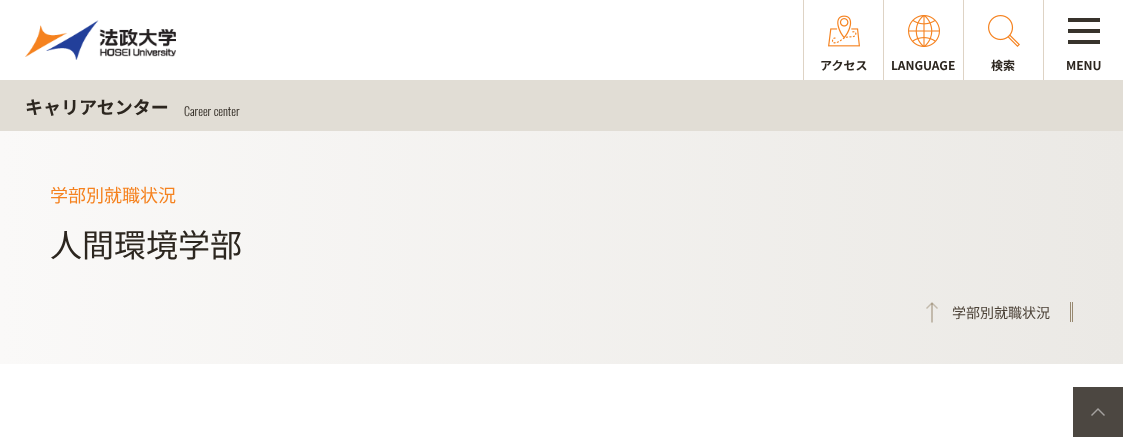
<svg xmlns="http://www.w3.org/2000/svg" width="1123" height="437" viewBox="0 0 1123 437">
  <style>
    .t1 { font: bold 12px Noto Sans JP; fill: #2c261f; }
    .t2 { font: bold 18px Noto Sans JP; fill: #2c261f; }
    .t3 { font: 300 12px Oswald; fill: #2c261f; }
    .t4 { font: 18px Noto Sans JP; fill: #f5821f; }
    .t5 { font: 32px Noto Sans JP; fill: #2c261f; }
    .t6 { font: 14px Noto Sans JP; fill: #4b4136; }
  </style>
  <defs>
    <linearGradient id="g1" gradientUnits="userSpaceOnUse" x1="1123" y1="247" x2="0" y2="247"><stop offset="0" stop-color="#ebe9e5"/><stop offset="1" stop-color="#faf9f8"/></linearGradient>
  </defs>
  <rect width="100%" height="100%" fill="#fff"/>
  <image x="25" y="20" width="151" height="40" href="images/1.png"/>
  <rect x="803" y="0" width="1" height="80" fill="#ded3c5"/>
  <image x="828" y="15" width="32" height="32" href="images/2.png"/>
  <text x="820" y="70" class="t1">アクセス</text>
  <rect x="883" y="0" width="1" height="80" fill="#ded3c5"/>
  <image x="908" y="15" width="32" height="32" href="images/3.png"/>
  <text x="891" y="70" class="t1">LANGUAGE</text>
  <rect x="963" y="0" width="1" height="80" fill="#ded3c5"/>
  <image x="988" y="15" width="32" height="32" href="images/4.png"/>
  <text x="991" y="70" class="t1">検索</text>
  <rect x="1043" y="0" width="1" height="80" fill="#ded3c5"/>
  <rect x="1068" y="18" width="32" height="4" fill="#38332c"/>
  <rect x="1068" y="29" width="32" height="4" fill="#38332c"/>
  <rect x="1068" y="40" width="32" height="4" fill="#38332c"/>
  <text x="1066" y="70" class="t1">MENU</text>
  <rect x="0" y="80" width="1123" height="51" fill="#e1ddd5"/>
  <text x="25" y="114" class="t2">キャリアセンター</text>
  <text x="184" y="116" class="t3">Career center</text>
  <rect x="0" y="131" width="1123" height="233" fill="url(#g1)"/>
  <text x="50" y="202" class="t4">学部別就職状況</text>
  <text x="50" y="257" class="t5">人間環境学部</text>
  <image x="926" y="302" width="12" height="21" href="images/5.png"/>
  <text x="952" y="318" class="t6">学部別就職状況</text>
  <rect x="1070" y="302" width="1" height="20" fill="#97886f"/>
  <rect x="1072" y="302" width="1" height="20" fill="#97886f"/>
  <rect x="1073" y="387" width="50" height="50" fill="#4c4741"/>
  <image x="1091" y="408" width="14" height="8" href="images/6.png"/>
</svg>
